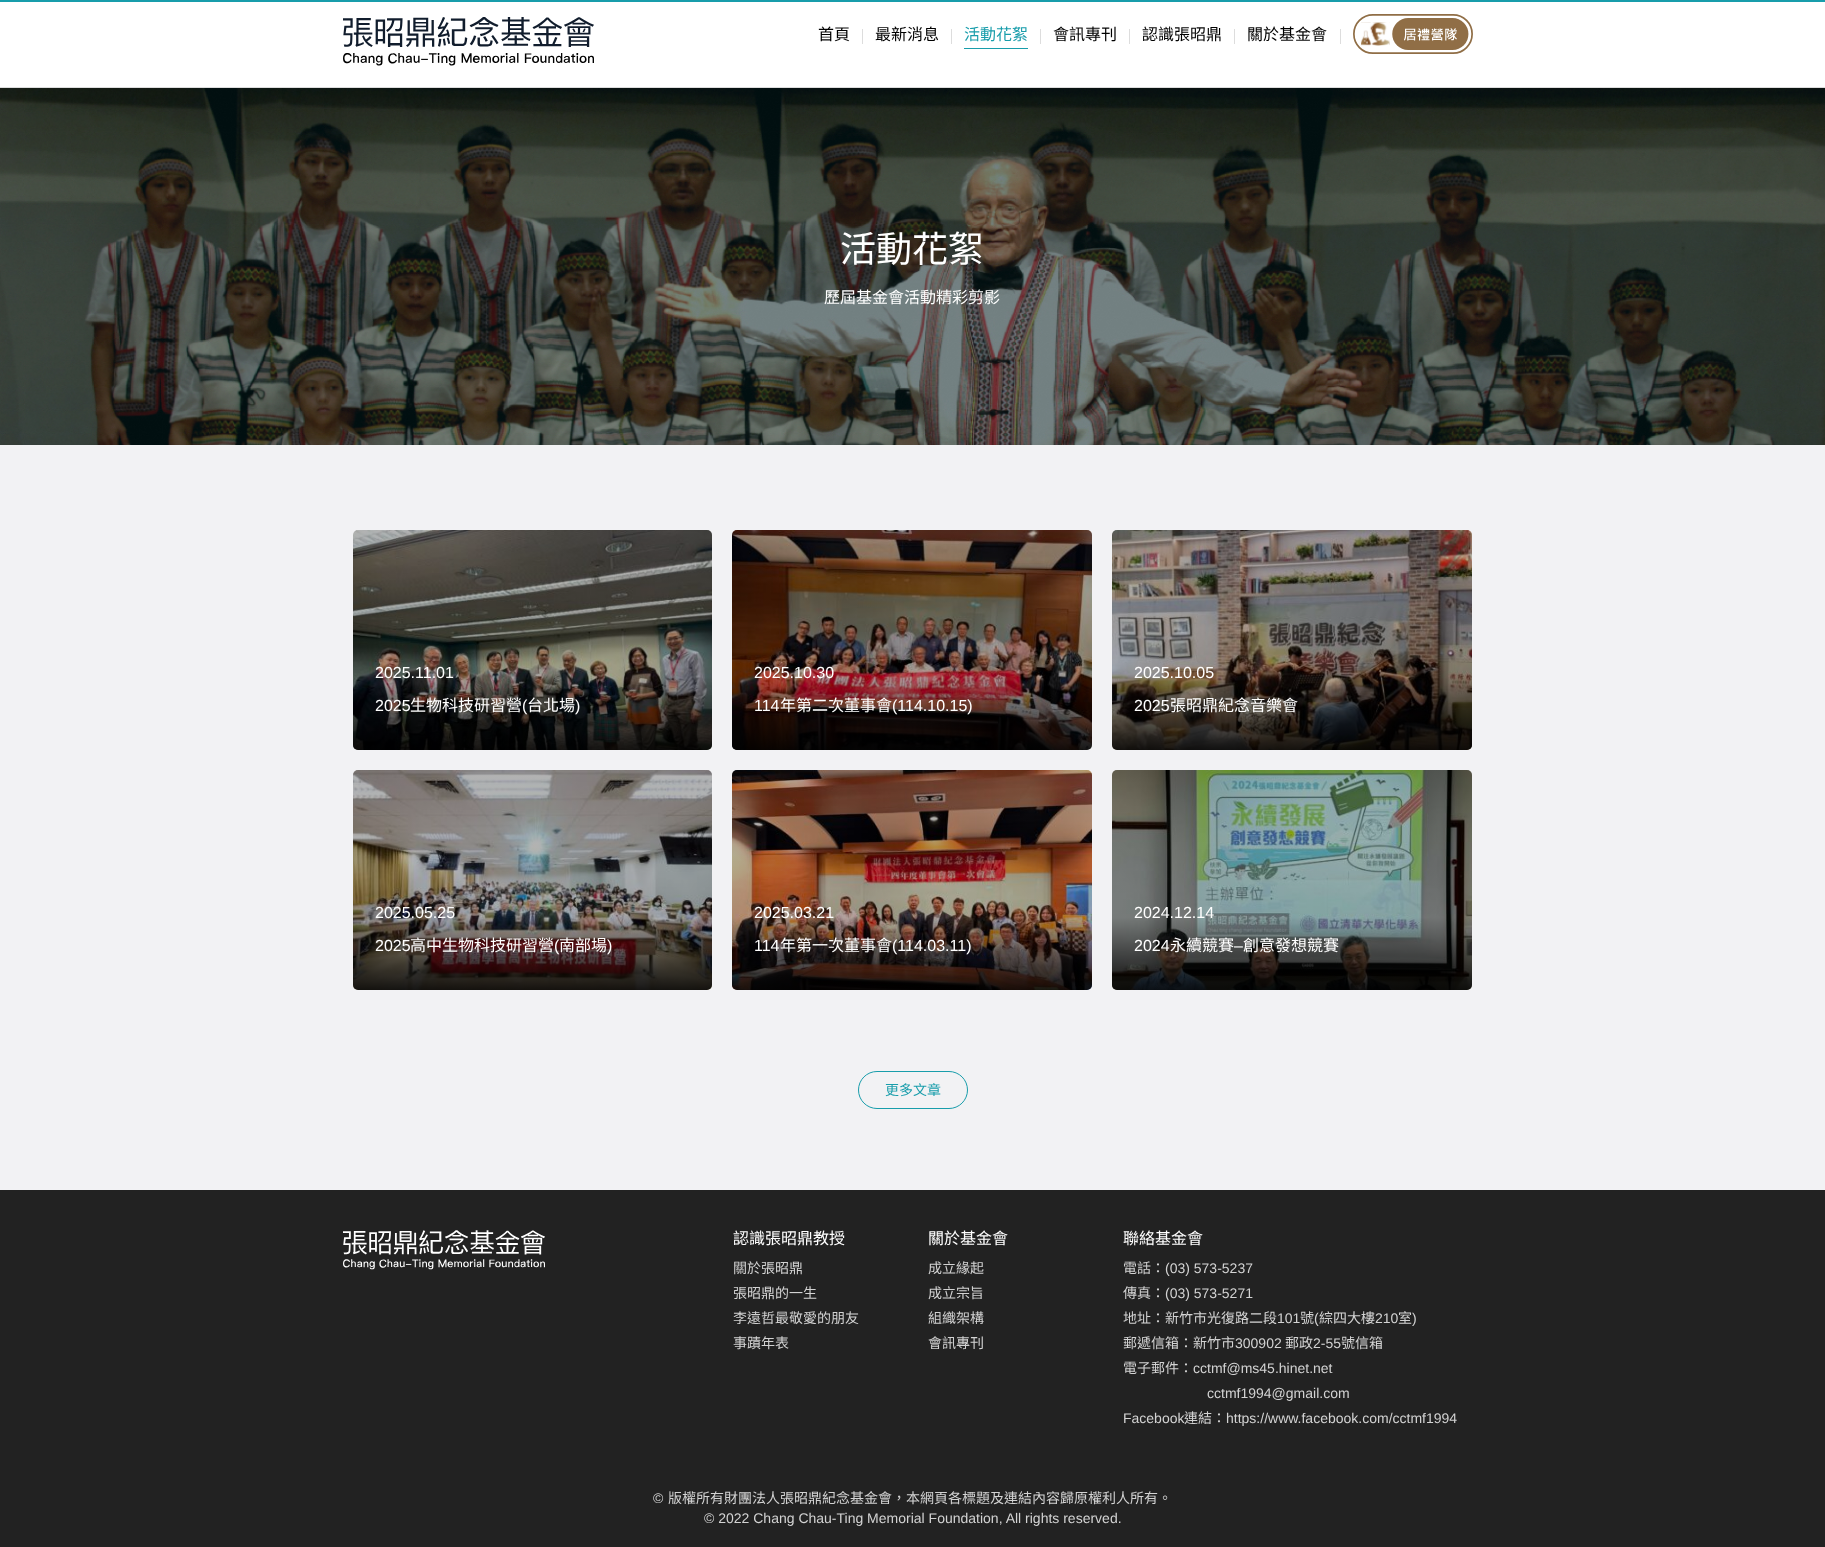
<svg xmlns="http://www.w3.org/2000/svg" width="1825" height="1547" viewBox="0 0 1825 1547">
  <style>
    .t1 { font: 16px Noto Sans CJK TC; fill: #000; }
    .t2 { font: 16px Noto Sans CJK TC; fill: #189dab; }
    .t3 { font: 36px Noto Sans CJK TC; fill: #fff; }
    .t4 { font: 16px Noto Sans CJK TC; fill: #fff; }
    .t5 { font: 16px Liberation Sans; fill: #fff; }
    .t6 { font: 14px Noto Sans CJK TC; fill: #189dab; }
    .t7 { font: 14px Noto Sans CJK TC; fill: #d3d3d3; }
    .t8 { font: 14px Liberation Sans; fill: #d3d3d3; }
  </style>
  <defs>
    <linearGradient id="g1" gradientUnits="userSpaceOnUse" x1="533" y1="530" x2="533" y2="750"><stop offset="0.67" stop-color="#000" stop-opacity="0.3"/><stop offset="1" stop-color="#000" stop-opacity="0.9"/></linearGradient>
    <linearGradient id="g2" gradientUnits="userSpaceOnUse" x1="912" y1="530" x2="912" y2="750"><stop offset="0.67" stop-color="#000" stop-opacity="0.3"/><stop offset="1" stop-color="#000" stop-opacity="0.9"/></linearGradient>
    <linearGradient id="g3" gradientUnits="userSpaceOnUse" x1="1292" y1="530" x2="1292" y2="750"><stop offset="0.67" stop-color="#000" stop-opacity="0.3"/><stop offset="1" stop-color="#000" stop-opacity="0.9"/></linearGradient>
    <linearGradient id="g4" gradientUnits="userSpaceOnUse" x1="533" y1="770" x2="533" y2="990"><stop offset="0.67" stop-color="#000" stop-opacity="0.3"/><stop offset="1" stop-color="#000" stop-opacity="0.9"/></linearGradient>
    <linearGradient id="g5" gradientUnits="userSpaceOnUse" x1="912" y1="770" x2="912" y2="990"><stop offset="0.67" stop-color="#000" stop-opacity="0.3"/><stop offset="1" stop-color="#000" stop-opacity="0.9"/></linearGradient>
    <linearGradient id="g6" gradientUnits="userSpaceOnUse" x1="1292" y1="770" x2="1292" y2="990"><stop offset="0.67" stop-color="#000" stop-opacity="0.3"/><stop offset="1" stop-color="#000" stop-opacity="0.9"/></linearGradient>
  </defs>
  <rect width="100%" height="100%" fill="#f2f2f4"/>
  <rect x="0" y="2" width="1825" height="85" fill="#fff"/>
  <rect x="0" y="0" width="1825" height="2" fill="#189dab"/>
  <rect x="0" y="87" width="1825" height="1" fill="#ddd"/>
  <image x="343" y="17" width="251" height="49" href="images/1.png"/>
  <text x="818" y="40" class="t1">首頁</text>
  <rect x="862" y="29" width="1" height="15" fill="#ddd"/>
  <text x="875" y="40" class="t1">最新消息</text>
  <rect x="951" y="29" width="1" height="15" fill="#ddd"/>
  <text x="964" y="40" class="t2">活動花絮</text>
  <rect x="964" y="48" width="64" height="1" fill="#189dab"/>
  <rect x="1040" y="29" width="1" height="15" fill="#ddd"/>
  <text x="1053" y="40" class="t1">會訊專刊</text>
  <rect x="1129" y="29" width="1" height="15" fill="#ddd"/>
  <text x="1142" y="40" class="t1">認識張昭鼎</text>
  <rect x="1234" y="29" width="1" height="15" fill="#ddd"/>
  <text x="1247" y="40" class="t1">關於基金會</text>
  <rect x="1340" y="29" width="1" height="15" fill="#ddd"/>
  <image x="1353" y="14" width="120" height="40" href="images/2.png"/>
  <image x="0" y="88" width="1825" height="357" href="images/3.png"/>
  <text x="840" y="262" class="t3">活動花絮</text>
  <text x="824" y="303" class="t4">歷屆基金會活動精彩剪影</text>
  <image x="353" y="530" width="359" height="220" href="images/4.png"/>
  <rect x="353" y="530" width="359" height="220" rx="5" fill="url(#g1)"/>
  <text x="375" y="678" class="t5">2025.11.01</text>
  <text x="375" y="711" class="t5">2025</text>
  <text x="410" y="711" class="t4">生物科技研習營</text>
  <text x="522" y="711" class="t5">(</text>
  <text x="527" y="711" class="t4">台北場</text>
  <text x="575" y="711" class="t5">)</text>
  <image x="732" y="530" width="360" height="220" href="images/5.png"/>
  <rect x="732" y="530" width="360" height="220" rx="5" fill="url(#g2)"/>
  <text x="754" y="678" class="t5">2025.10.30</text>
  <text x="754" y="711" class="t5">114</text>
  <text x="780" y="711" class="t4">年第二次董事會</text>
  <text x="892" y="711" class="t5">(114.10.15)</text>
  <image x="1112" y="530" width="360" height="220" href="images/6.png"/>
  <rect x="1112" y="530" width="360" height="220" rx="5" fill="url(#g3)"/>
  <text x="1134" y="678" class="t5">2025.10.05</text>
  <text x="1134" y="711" class="t5">2025</text>
  <text x="1170" y="711" class="t4">張昭鼎紀念音樂會</text>
  <image x="353" y="770" width="359" height="220" href="images/7.png"/>
  <rect x="353" y="770" width="359" height="220" rx="5" fill="url(#g4)"/>
  <text x="375" y="918" class="t5">2025.05.25</text>
  <text x="375" y="951" class="t5">2025</text>
  <text x="410" y="951" class="t4">高中生物科技研習營</text>
  <text x="554" y="951" class="t5">(</text>
  <text x="559" y="951" class="t4">南部場</text>
  <text x="607" y="951" class="t5">)</text>
  <image x="732" y="770" width="360" height="220" href="images/8.png"/>
  <rect x="732" y="770" width="360" height="220" rx="5" fill="url(#g5)"/>
  <text x="754" y="918" class="t5">2025.03.21</text>
  <text x="754" y="951" class="t5">114</text>
  <text x="780" y="951" class="t4">年第一次董事會</text>
  <text x="892" y="951" class="t5">(114.03.11)</text>
  <image x="1112" y="770" width="360" height="220" href="images/9.png"/>
  <rect x="1112" y="770" width="360" height="220" rx="5" fill="url(#g6)"/>
  <text x="1134" y="918" class="t5">2024.12.14</text>
  <text x="1134" y="951" class="t5">2024</text>
  <text x="1170" y="951" class="t4">永續競賽</text>
  <text x="1234" y="951" class="t5">–</text>
  <text x="1243" y="951" class="t4">創意發想競賽</text>
  <rect x="858.5" y="1071.5" width="109" height="37" rx="18.5" fill="none" stroke="#189dab"/>
  <text x="885" y="1095" class="t6">更多文章</text>
  <rect x="0" y="1190" width="1825" height="357" fill="#222"/>
  <image x="343" y="1230" width="202" height="40" href="images/10.png"/>
  <text x="733" y="1244" class="t4">認識張昭鼎教授</text>
  <text x="733" y="1273" class="t7">關於張昭鼎</text>
  <text x="733" y="1298" class="t7">張昭鼎的一生</text>
  <text x="733" y="1323" class="t7">李遠哲最敬愛的朋友</text>
  <text x="733" y="1348" class="t7">事蹟年表</text>
  <text x="928" y="1244" class="t4">關於基金會</text>
  <text x="928" y="1273" class="t7">成立緣起</text>
  <text x="928" y="1298" class="t7">成立宗旨</text>
  <text x="928" y="1323" class="t7">組織架構</text>
  <text x="928" y="1348" class="t7">會訊專刊</text>
  <text x="1123" y="1244" class="t4">聯絡基金會</text>
  <text x="1123" y="1273" class="t7">電話：</text>
  <text x="1165" y="1273" class="t8">(03) 573-5237</text>
  <text x="1123" y="1298" class="t7">傳真：</text>
  <text x="1165" y="1298" class="t8">(03) 573-5271</text>
  <text x="1123" y="1323" class="t7">地址：新竹市光復路二段</text>
  <text x="1277" y="1323" class="t8">101</text>
  <text x="1300" y="1323" class="t7">號</text>
  <text x="1314" y="1323" class="t8">(</text>
  <text x="1319" y="1323" class="t7">綜四大樓</text>
  <text x="1375" y="1323" class="t8">210</text>
  <text x="1398" y="1323" class="t7">室</text>
  <text x="1412" y="1323" class="t8">)</text>
  <text x="1123" y="1348" class="t7">郵遞信箱：新竹市</text>
  <text x="1235" y="1348" class="t8">300902</text>
  <text x="1285" y="1348" class="t7">郵政</text>
  <text x="1313" y="1348" class="t8">2-55</text>
  <text x="1341" y="1348" class="t7">號信箱</text>
  <text x="1123" y="1373" class="t7">電子郵件：</text>
  <text x="1193" y="1373" class="t8">cctmf@ms45.hinet.net</text>
  <text x="1207" y="1398" class="t8">cctmf1994@gmail.com</text>
  <text x="1123" y="1423" class="t8">Facebook</text>
  <text x="1184" y="1423" class="t7">連結：</text>
  <text x="1226" y="1423" class="t8">https://www.facebook.com/cctmf1994</text>
  <text x="653" y="1503" class="t8">©</text>
  <text x="668" y="1503" class="t7">版權所有財團法人張昭鼎紀念基金會，本網頁各標題及連結內容歸原權利人所有。</text>
  <text x="704" y="1523" class="t8">© 2022 Chang Chau-Ting Memorial Foundation, All rights reserved.</text>
</svg>
